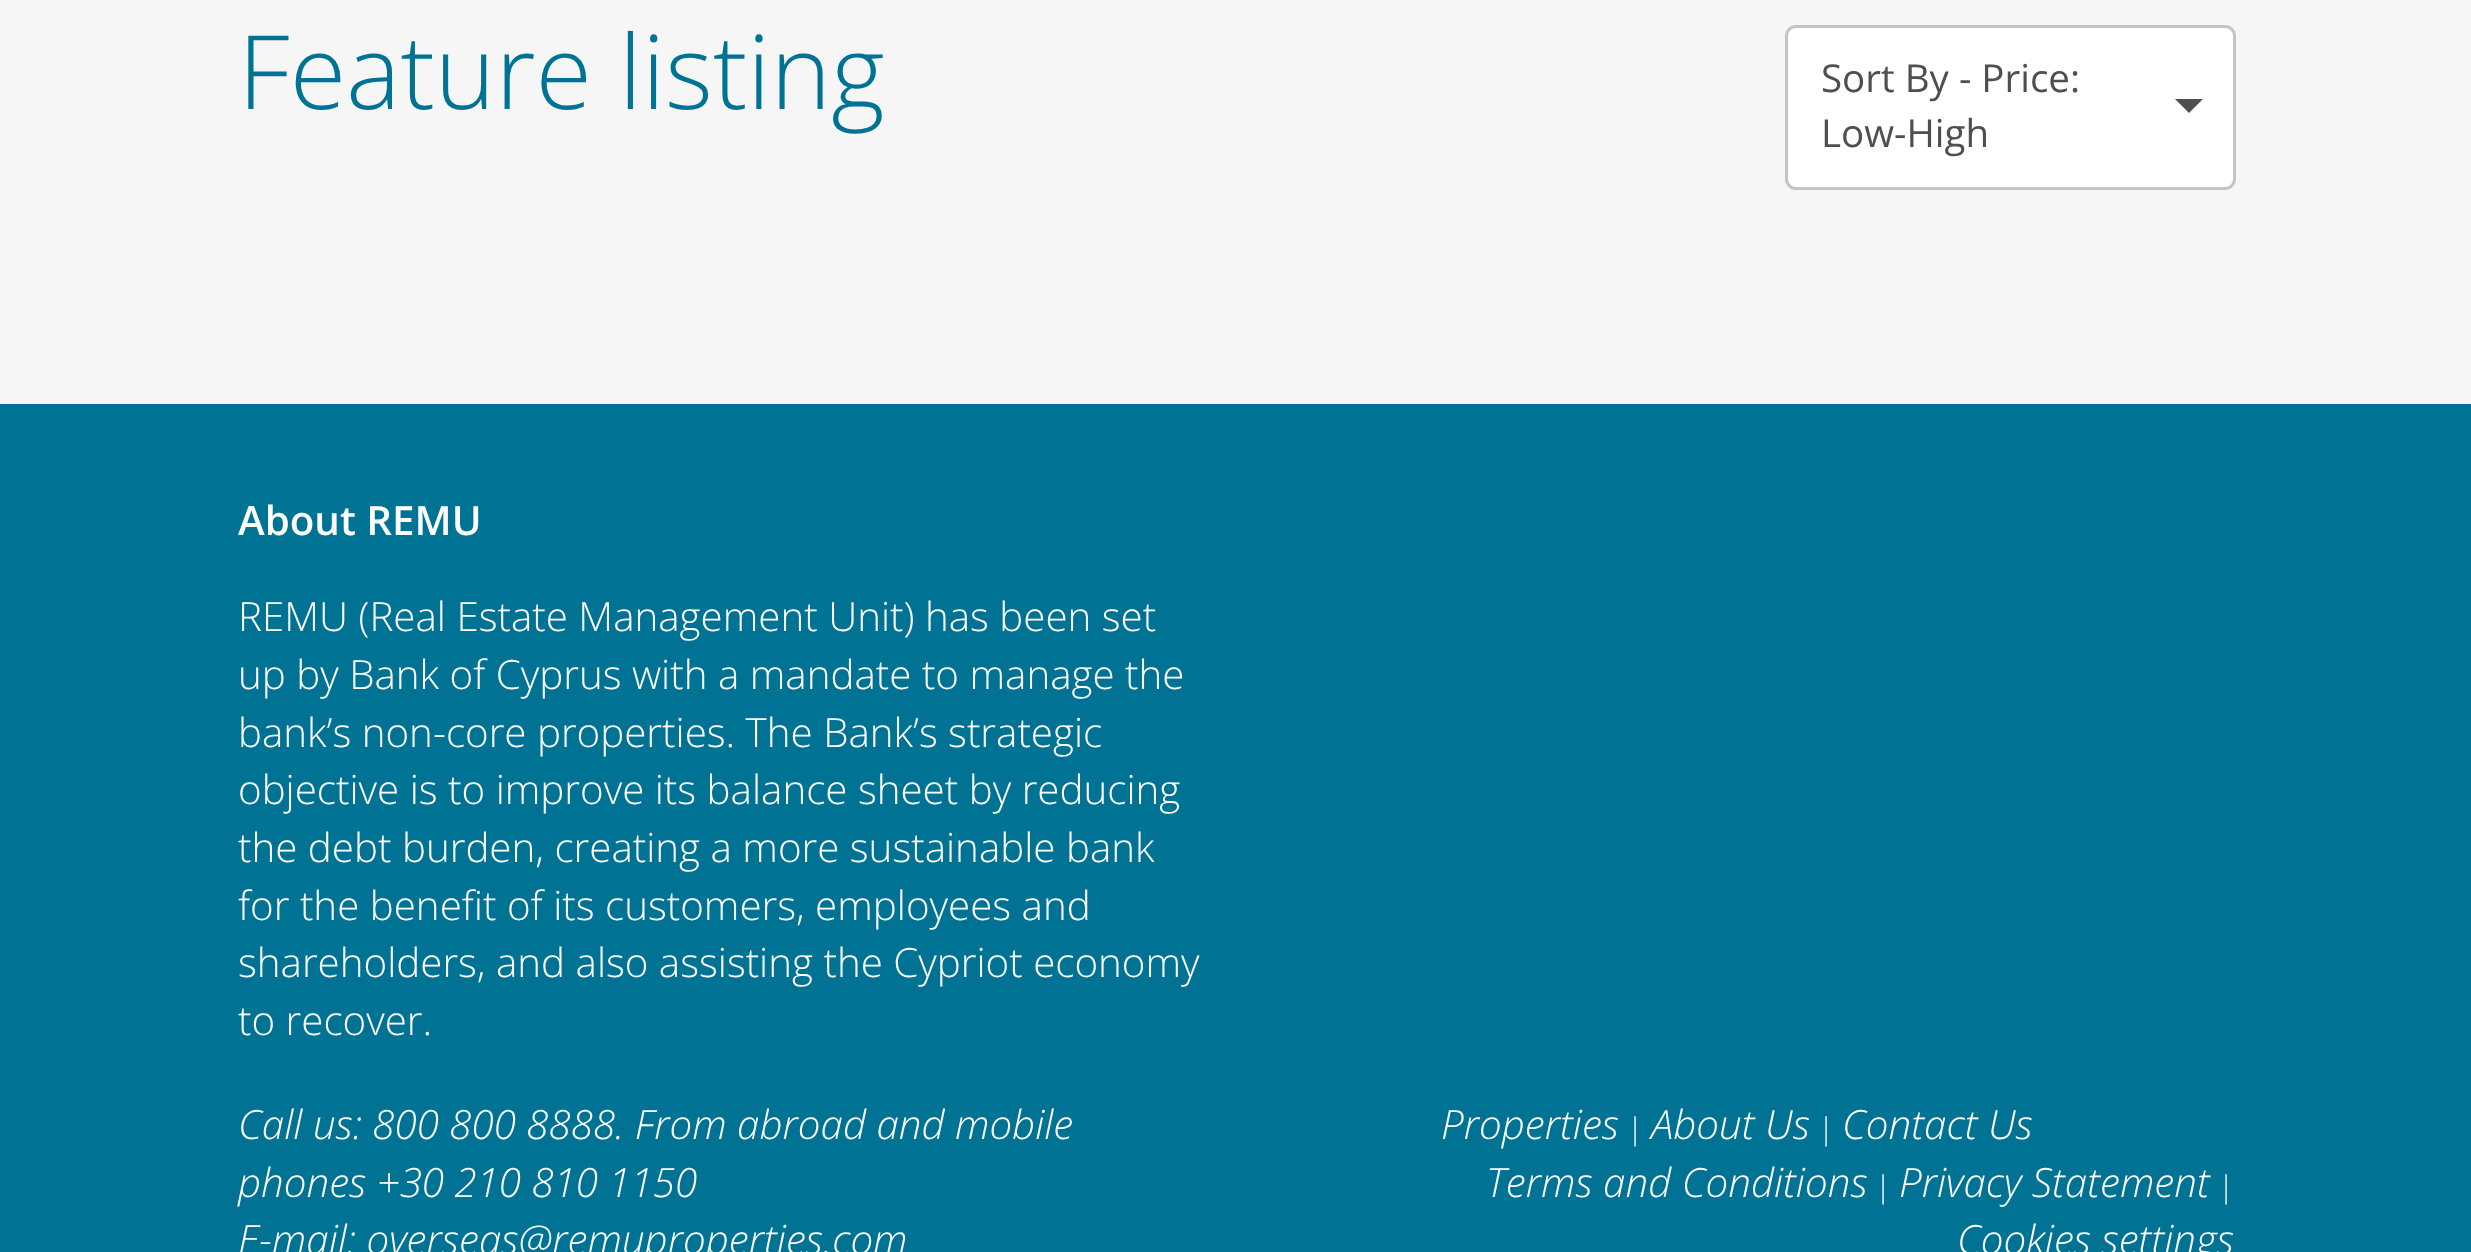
<svg xmlns="http://www.w3.org/2000/svg" width="2471" height="1252" viewBox="0 0 2471 1252">
  <style>
    .t1 { font: 300 102.75px Open Sans; fill: #007394; }
    .t2 { font: 38.5px Open Sans; fill: #4f4f4f; }
    .t3 { font: 600 40.3px Open Sans; fill: #fff; }
    .t4 { font: 300 40.3px Open Sans; fill: #fff; }
    .t5 { font: italic 300 40.3px Open Sans; fill: #fff; }
    .t6 { font: 300 30px Open Sans; fill: #fff; }
  </style>
  <rect width="100%" height="100%" fill="#f6f6f6"/>
  <text x="238" y="109" class="t1">Feature listing</text>
  <rect x="1786.5" y="26.5" width="448" height="162" rx="9.5" fill="#fff" stroke="#c4c4c4" stroke-width="3"/>
  <text x="1821" y="92" class="t2">Sort By - Price:</text>
  <text x="1821" y="147" class="t2">Low-High</text>
  <path d="M2175 99H2203L2189 113Z" fill="#4f4f4f"/>
  <rect x="0" y="404" width="2471" height="848" fill="#007394"/>
  <text x="238" y="535" class="t3">About REMU</text>
  <text x="238" y="631" class="t4">REMU (Real Estate Management Unit) has been set</text>
  <text x="238" y="689" class="t4">up by Bank of Cyprus with a mandate to manage the</text>
  <text x="238" y="747" class="t4">bank’s non-core properties. The Bank’s strategic</text>
  <text x="238" y="804" class="t4">objective is to improve its balance sheet by reducing</text>
  <text x="238" y="862" class="t4">the debt burden, creating a more sustainable bank</text>
  <text x="238" y="920" class="t4">for the benefit of its customers, employees and</text>
  <text x="238" y="977" class="t4">shareholders, and also assisting the Cypriot economy</text>
  <text x="238" y="1035" class="t4">to recover.</text>
  <text x="238" y="1139" class="t5">Call us: 800 800 8888. From abroad and mobile</text>
  <text x="238" y="1197" class="t5">phones +30 210 810 1150</text>
  <text x="238" y="1254" class="t5">E-mail: overseas@remuproperties.com</text>
  <text x="1441" y="1139" class="t5">Properties</text>
  <text x="1627" y="1139" class="t6">|</text>
  <text x="1651" y="1139" class="t5">About Us</text>
  <text x="1818" y="1139" class="t6">|</text>
  <text x="1842" y="1139" class="t5">Contact Us</text>
  <text x="1486" y="1197" class="t5">Terms and Conditions</text>
  <text x="1875" y="1197" class="t6">|</text>
  <text x="1899" y="1197" class="t5">Privacy Statement</text>
  <text x="2218" y="1197" class="t6">|</text>
  <text x="1957" y="1254" class="t5">Cookies settings</text>
</svg>
